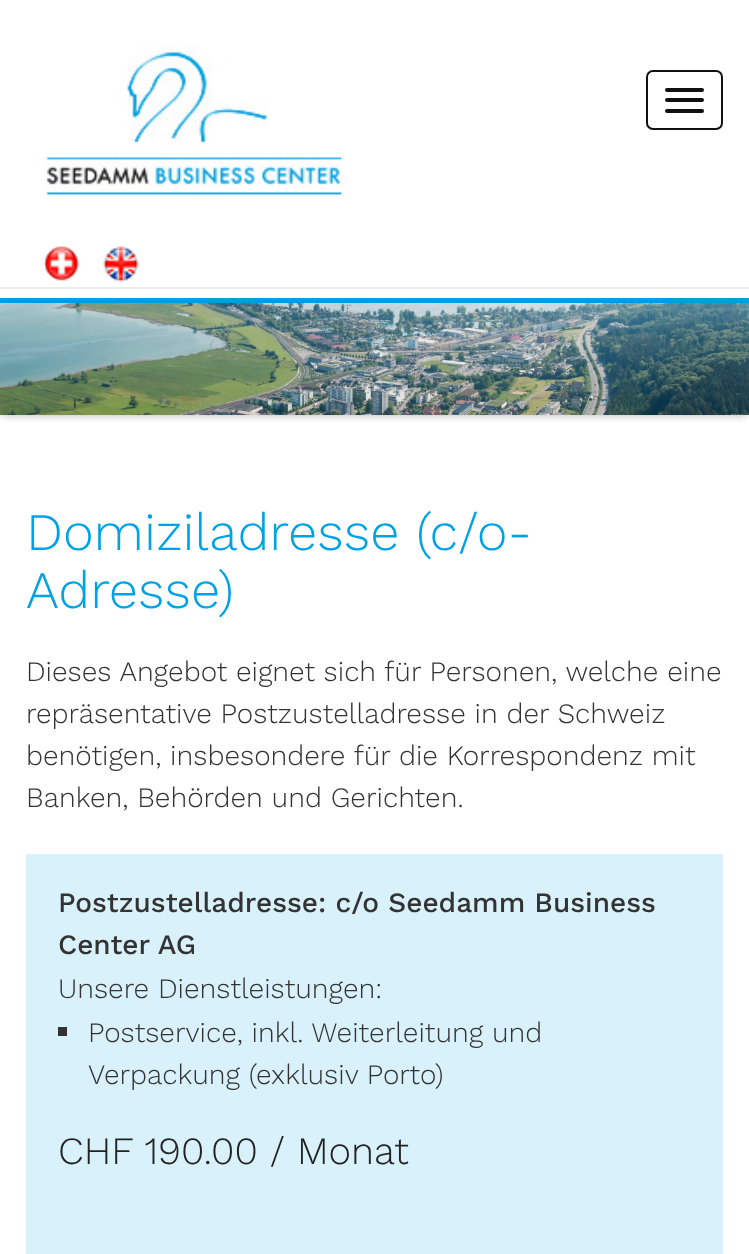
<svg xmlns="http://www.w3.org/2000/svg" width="749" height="1254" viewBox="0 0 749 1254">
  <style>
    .t1 { font: 300 52.5px Work Sans; fill: #00a2e6; }
    .t2 { font: 300 28px Work Sans; fill: #333; }
    .t3 { font: 500 28px Work Sans; fill: #333; }
    .t4 { font: 300 38.5px Work Sans; fill: #222; }
  </style>
  <rect width="100%" height="100%" fill="#fff"/>
  <rect x="0" y="298" width="749" height="5" fill="#00a2e6"/>
  <image x="44" y="44" width="303" height="153" href="images/1.png"/>
  <rect x="647" y="71" width="75" height="58" rx="6" fill="none" stroke="#111" stroke-width="2"/>
  <rect x="665" y="88" width="39" height="4" rx="2" fill="#111"/>
  <rect x="665" y="98" width="39" height="4" rx="2" fill="#111"/>
  <rect x="665" y="109" width="39" height="4" rx="2" fill="#111"/>
  <image x="43" y="246" width="37" height="35" href="images/2.png"/>
  <image x="103" y="246" width="36" height="36" href="images/3.png"/>
  <rect x="0" y="287" width="749" height="2" fill="#ececec"/>
  <rect x="0" y="305" width="749" height="112" rx="7" fill="#00000033" filter="blur(3.5px)"/>
  <image x="0" y="303" width="749" height="112" href="images/4.png"/>
  <text x="26" y="550" class="t1">Domiziladresse (c/o-</text>
  <text x="26" y="608" class="t1">Adresse)</text>
  <text x="26" y="681" class="t2">Dieses Angebot eignet sich für Personen, welche eine</text>
  <text x="26" y="723" class="t2">repräsentative Postzustelladresse in der Schweiz</text>
  <text x="26" y="765" class="t2">benötigen, insbesondere für die Korrespondenz mit</text>
  <text x="26" y="807" class="t2">Banken, Behörden und Gerichten.</text>
  <rect x="26" y="854" width="697" height="400" fill="#d9f1fb"/>
  <text x="58" y="912" class="t3">Postzustelladresse: c/o Seedamm Business</text>
  <text x="58" y="954" class="t3">Center AG</text>
  <text x="58" y="998" class="t2">Unsere Dienstleistungen:</text>
  <rect x="58" y="1027" width="9" height="9" fill="#333"/>
  <text x="88" y="1042" class="t2">Postservice, inkl. Weiterleitung und</text>
  <text x="88" y="1084" class="t2">Verpackung (exklusiv Porto)</text>
  <text x="58" y="1164" class="t4">CHF 190.00 / Monat</text>
</svg>
